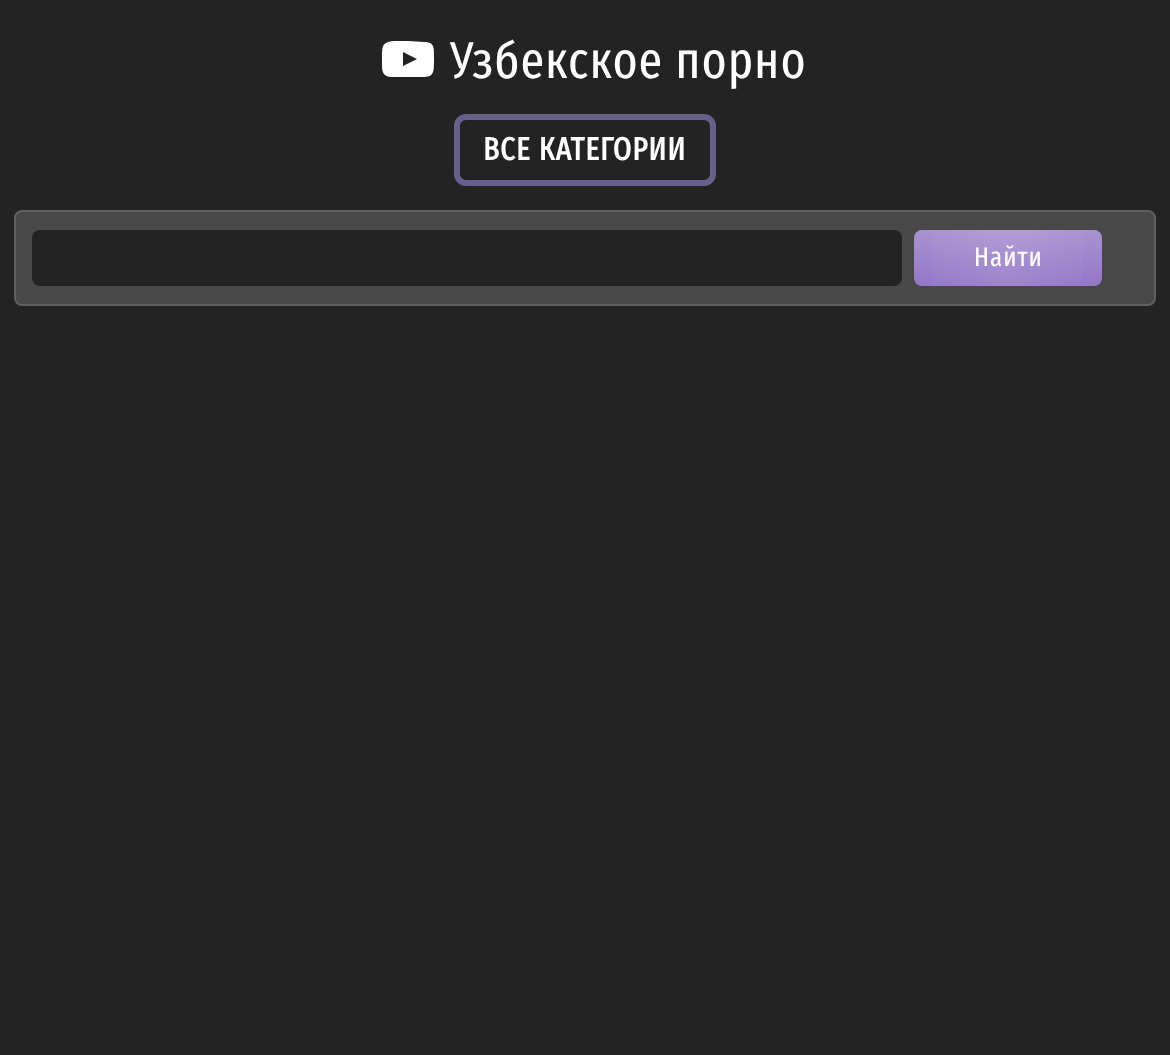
<svg xmlns="http://www.w3.org/2000/svg" width="1170" height="1055" viewBox="0 0 1170 1055">
  <style>
    .t1 { font: 52px Fira Sans Extra Condensed; letter-spacing: 1px; fill: #fff; }
    .t2 { font: bold 32px Fira Sans Extra Condensed; letter-spacing: 1px; fill: #fff; }
    .t3 { font: 27px Fira Sans Extra Condensed; letter-spacing: 1px; fill: #fff; }
  </style>
  <defs>
    <linearGradient id="g1" gradientUnits="userSpaceOnUse" x1="914" y1="258" x2="1102" y2="258"><stop offset="0" stop-color="#fff" stop-opacity="0"/><stop offset="0.5" stop-color="#fff" stop-opacity="0.1"/><stop offset="1" stop-color="#fff" stop-opacity="0"/></linearGradient>
    <linearGradient id="g2" gradientUnits="userSpaceOnUse" x1="1008" y1="230" x2="1008" y2="286"><stop offset="0" stop-color="#fff" stop-opacity="0.2"/><stop offset="1" stop-color="#fff" stop-opacity="0"/></linearGradient>
  </defs>
  <rect width="100%" height="100%" fill="#232323"/>
  <path d="M403 66L417 59L403 52ZM408 41L424 42C435 42 434 48 434 59C434 73 434 77 422 77H393C381 77 382 70 382 59C382 46 382 42 394 41Z" fill="#fff"/>
  <text x="450" y="78" class="t1">Узбекское порно</text>
  <rect x="457" y="117" width="256" height="66" rx="9" fill="none" stroke="#66608d" stroke-width="6"/>
  <text x="483" y="160" class="t2">ВСЕ КАТЕГОРИИ</text>
  <rect x="15" y="211" width="1140" height="94" rx="7" fill="#484848" stroke="#5f5f5f" stroke-width="2"/>
  <rect x="32" y="230" width="870" height="56" rx="8" fill="#232323"/>
  <rect x="914" y="230" width="188" height="56" rx="8" fill="#9378c7"/>
  <rect x="934" y="230" width="148" height="56" fill="url(#g1)"/>
  <rect x="914" y="230" width="188" height="56" rx="8" fill="url(#g2)"/>
  <text x="974" y="266" class="t3">Найти</text>
</svg>
